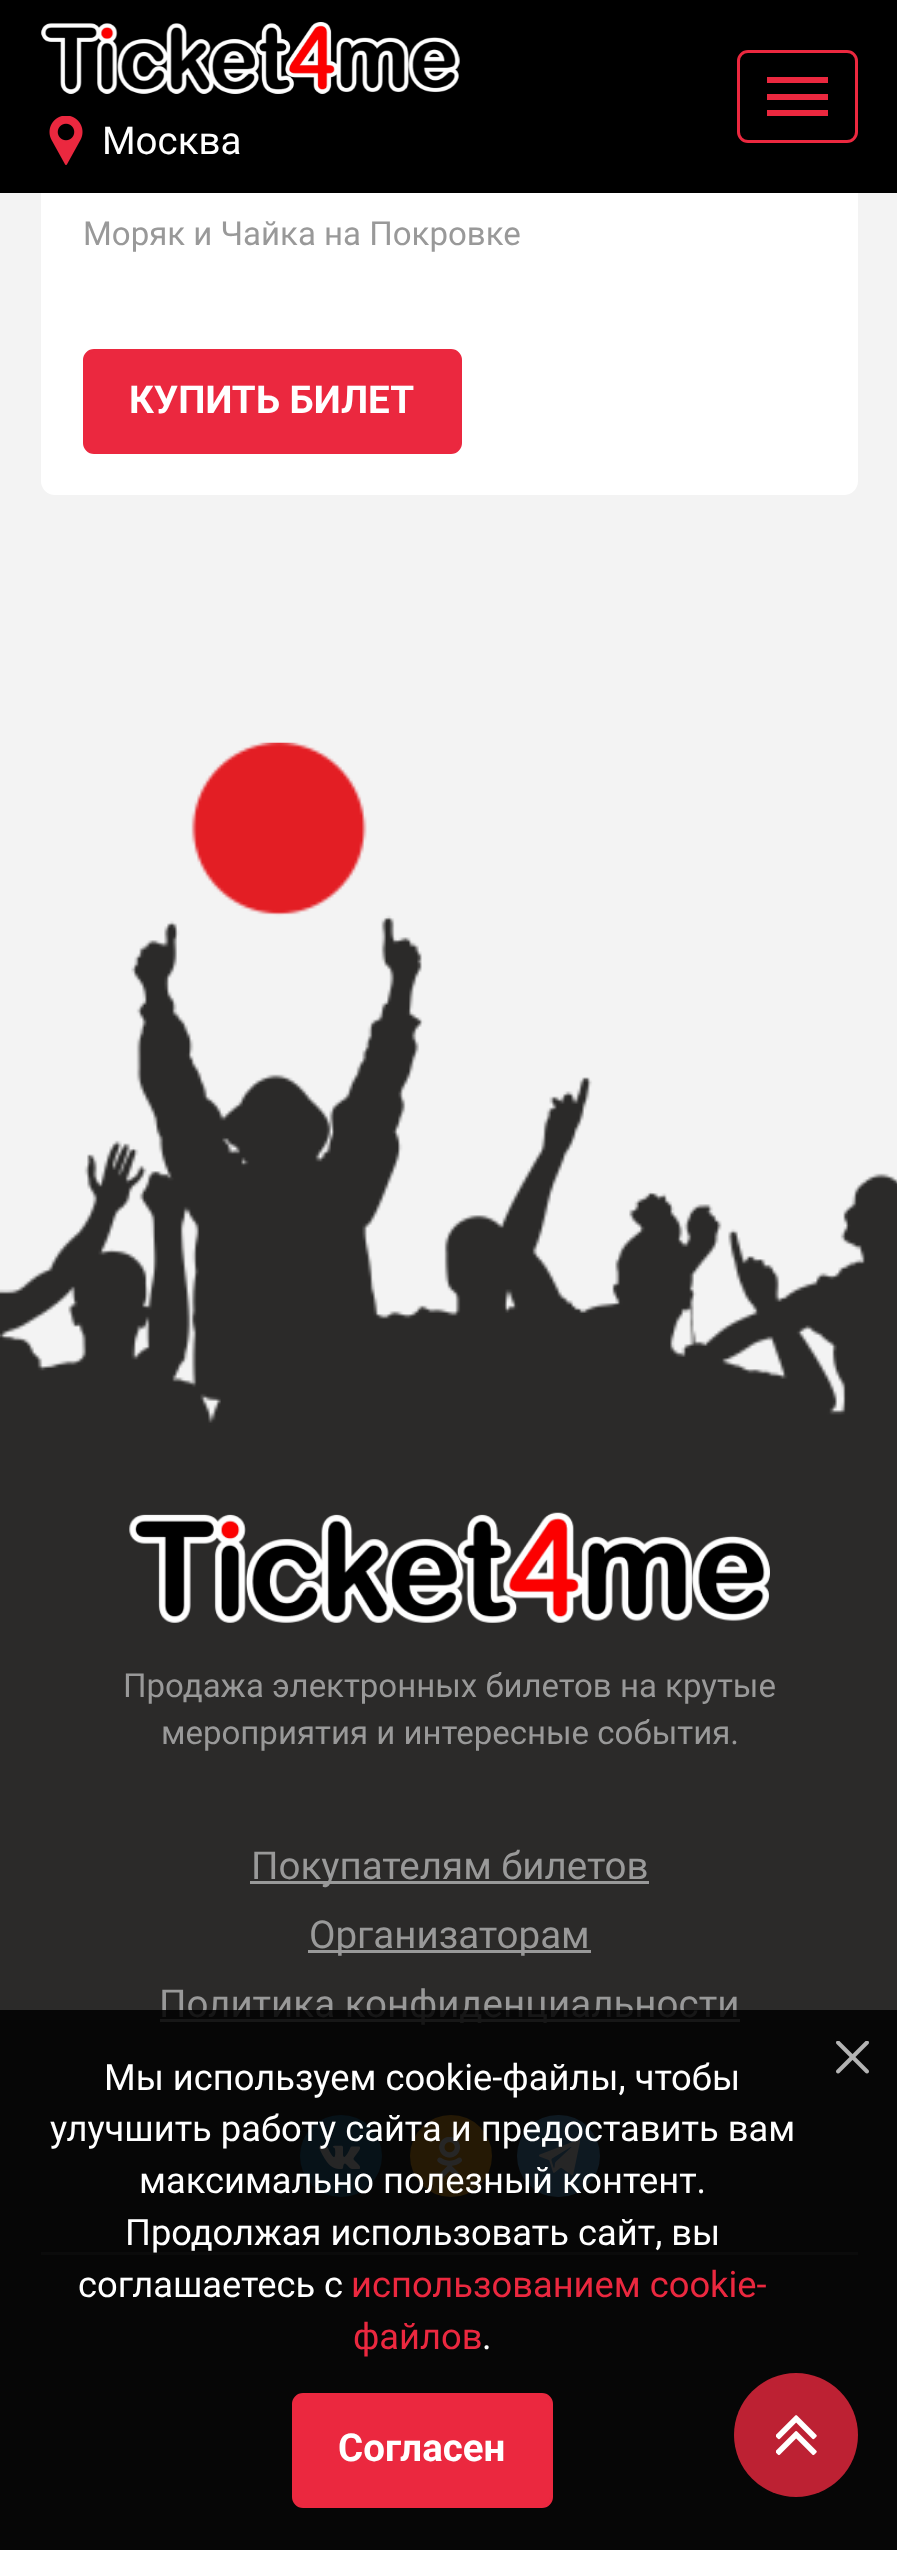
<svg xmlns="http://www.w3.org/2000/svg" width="897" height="2550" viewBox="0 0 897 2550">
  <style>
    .t1 { font: 38.5px Roboto; fill: #fff; }
    .t2 { font: 33px Roboto; fill: #999; }
    .t3 { font: bold 38.5px Roboto; fill: #fff; }
    .t4 { font: 38.5px Roboto; fill: #999; }
    .t5 { font: 36.3px Roboto; fill: #fff; }
    .t6 { font: 36.3px Roboto; fill: #eb283f; }
  </style>
  <rect width="100%" height="100%" fill="#f3f3f3"/>
  <rect x="41" y="-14" width="817" height="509" rx="14" fill="#fff"/>
  <rect x="0" y="0" width="897" height="193" fill="#000"/>
  <image x="41" y="22" width="419" height="72" href="images/1.png"/>
  <rect x="738.5" y="51.5" width="118" height="90" rx="9.5" fill="none" stroke="#eb283f" stroke-width="3"/>
  <rect x="767" y="77" width="61" height="6" fill="#eb283f"/>
  <rect x="767" y="94" width="61" height="6" fill="#eb283f"/>
  <rect x="767" y="110" width="61" height="6" fill="#eb283f"/>
  <image x="49" y="116" width="34" height="49" href="images/2.png"/>
  <text x="102" y="154" class="t1">Москва</text>
  <text x="83" y="245" class="t2">Моряк и Чайка на Покровке</text>
  <rect x="84.5" y="350.5" width="376" height="102" rx="9.5" fill="#eb283f" stroke="#eb283f" stroke-width="3"/>
  <text x="129" y="413" class="t3">КУПИТЬ БИЛЕТ</text>
  <image x="0" y="742" width="897" height="688" href="images/3.png"/>
  <rect x="0" y="1430" width="897" height="1120" fill="#2b2a29"/>
  <image x="129" y="1512" width="641" height="111" href="images/4.png"/>
  <text x="123" y="1697" class="t2">Продажа электронных билетов на крутые</text>
  <text x="161" y="1744" class="t2">мероприятия и интересные события.</text>
  <rect x="250" y="1881" width="399" height="3" fill="#999"/>
  <text x="251" y="1879" class="t4">Покупателям билетов</text>
  <rect x="308" y="1950" width="283" height="3" fill="#999"/>
  <text x="309" y="1948" class="t4">Организаторам</text>
  <rect x="160" y="2019" width="580" height="3" fill="#999"/>
  <text x="159" y="2017" class="t4">Политика конфиденциальности</text>
  <circle cx="341" cy="2156" r="41" fill="#2e77a4"/>
  <image x="319" y="2145" width="41" height="24" href="images/5.png"/>
  <circle cx="451" cy="2156" r="41" fill="#f5a623"/>
  <image x="437" y="2137" width="25" height="41" href="images/6.png"/>
  <rect x="517" y="2115" width="83" height="82" rx="41" fill="#61a8de"/>
  <image x="539" y="2139" width="41" height="37" href="images/7.png"/>
  <rect x="41" y="2252" width="817" height="3" fill="#4b4a49"/>
  <rect x="0" y="2010" width="897" height="540" fill="#000000d9"/>
  <image x="836" y="2041" width="33" height="33" href="images/8.png"/>
  <text x="104" y="2090" class="t5">Мы используем cookie-файлы, чтобы</text>
  <text x="50" y="2141" class="t5">улучшить работу сайта и предоставить вам</text>
  <text x="139" y="2193" class="t5">максимально полезный контент.</text>
  <text x="125" y="2245" class="t5">Продолжая использовать сайт, вы</text>
  <text x="78" y="2297" class="t5">соглашаетесь с</text>
  <text x="351" y="2297" class="t6">использованием cookie-</text>
  <text x="353" y="2349" class="t6">файлов</text>
  <text x="482" y="2349" class="t5">.</text>
  <rect x="293.5" y="2394.5" width="258" height="112" rx="9.5" fill="#eb283f" stroke="#eb283f" stroke-width="3"/>
  <text x="338" y="2461" class="t3">Согласен</text>
  <circle cx="796" cy="2435" r="62" fill="#eb283fcc"/>
  <image x="776" y="2415" width="41" height="41" href="images/9.png"/>
</svg>
